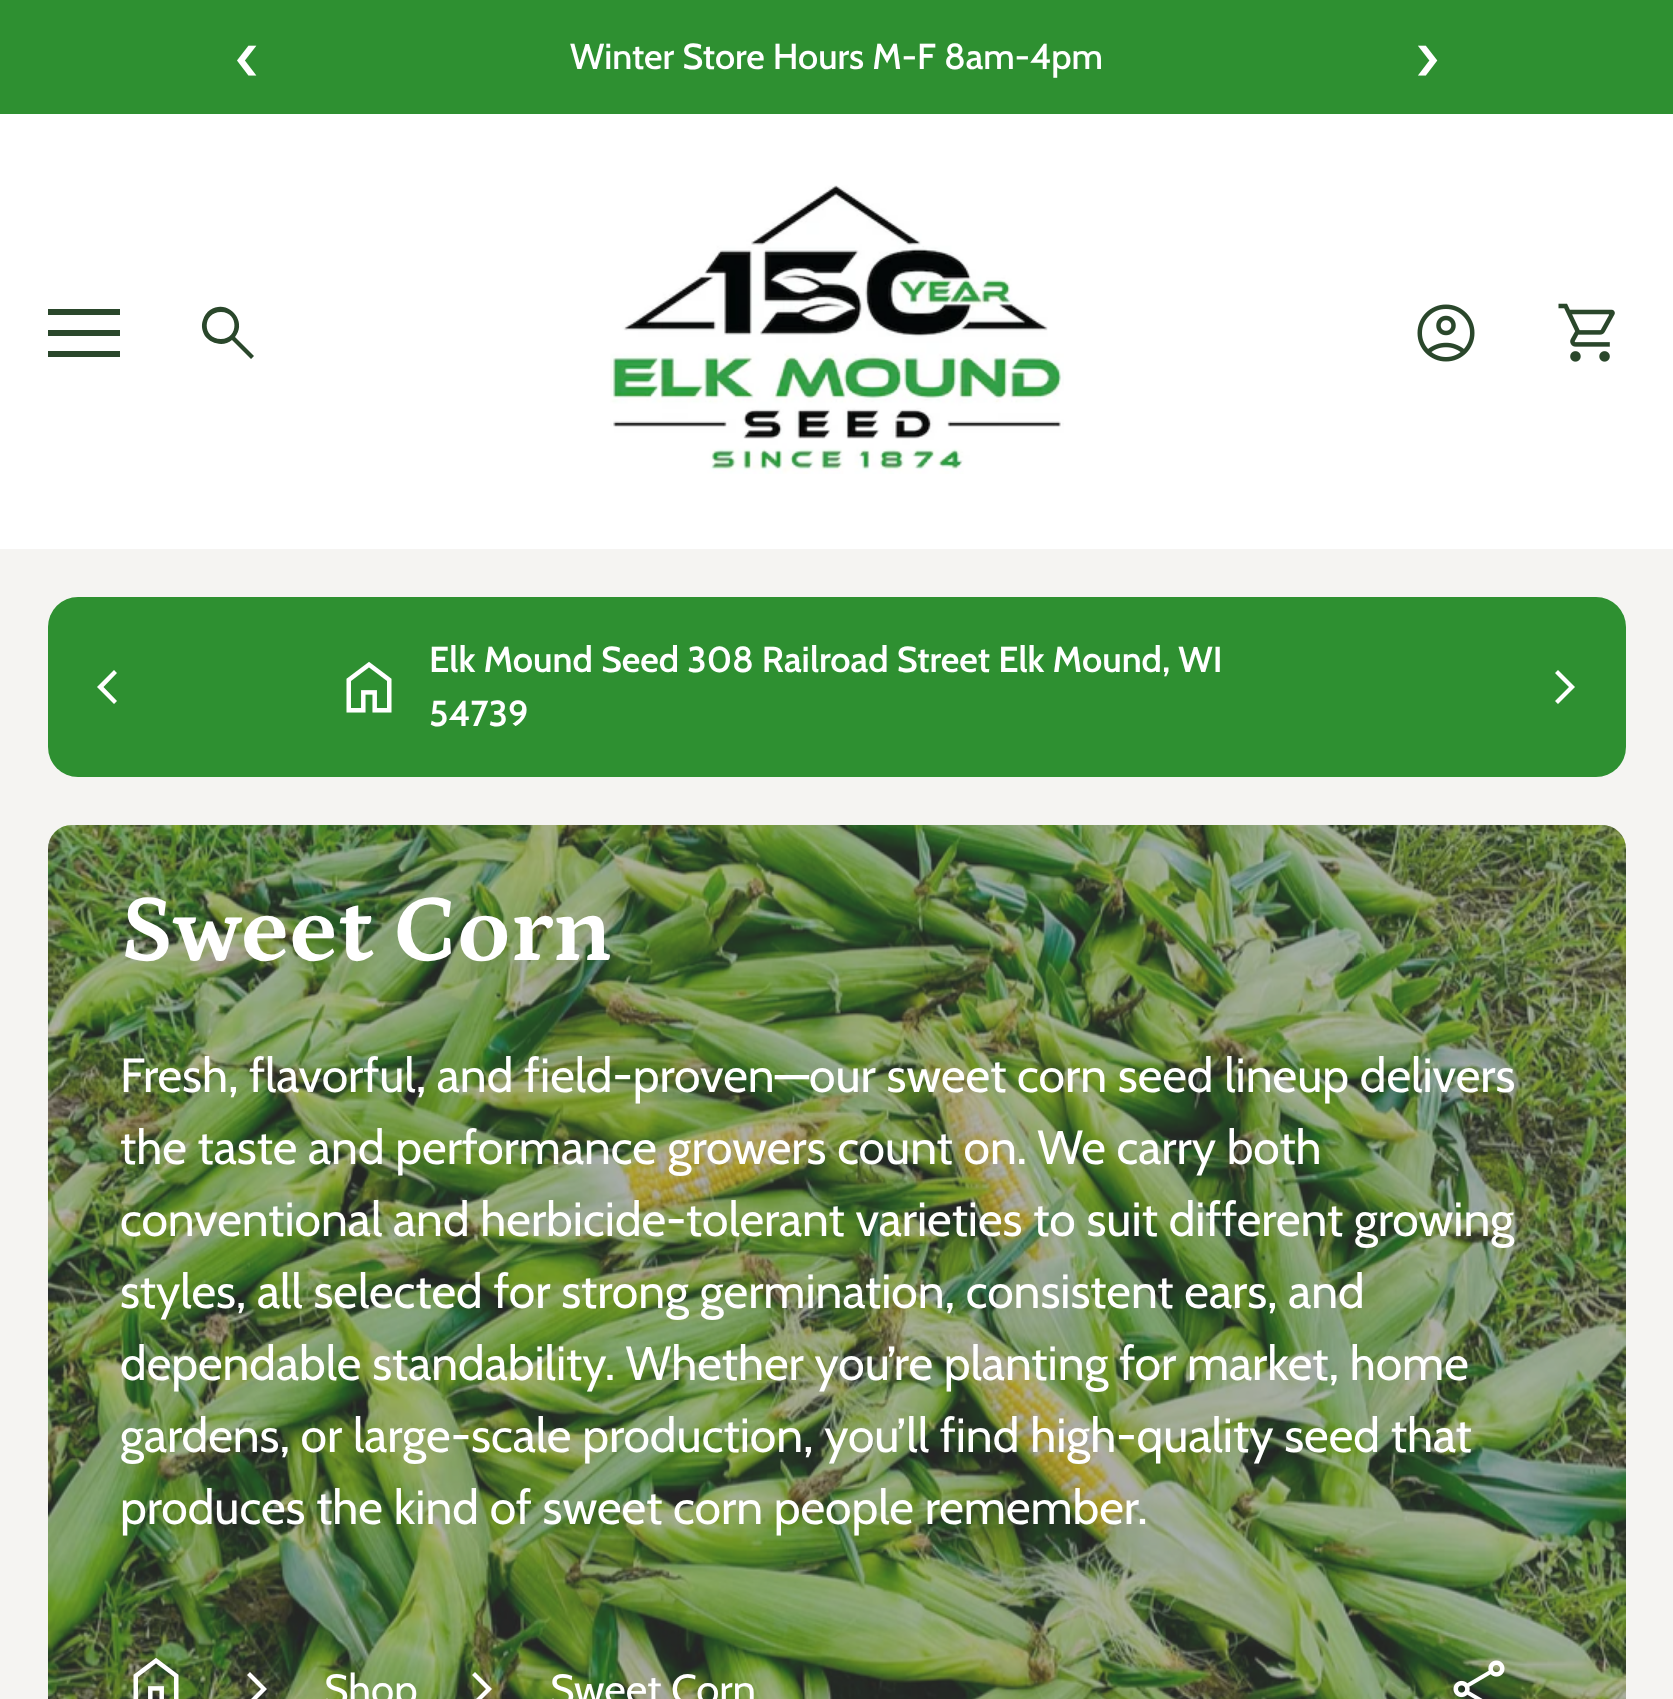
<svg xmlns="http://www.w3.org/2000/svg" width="1673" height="1699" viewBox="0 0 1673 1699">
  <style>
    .t1 { font: 72px Cabin; fill: #fff; }
    .t2 { font: 500 36px Cabin; fill: #fff; }
    .t3 { font: 600 36px Cabin; fill: #fff; }
    .t4 { font: bold 96px Petrona; fill: #fff; }
    .t5 { font: 48px Cabin; fill: #fff; }
    .t6 { font: 42px Cabin; fill: #fff; }
  </style>
  <rect width="100%" height="100%" fill="#f5f4f2"/>
  <rect x="0" y="0" width="1673" height="114" fill="#2e9031"/>
  <text x="236" y="81" class="t1">‹</text>
  <text x="570" y="69" class="t2">Winter Store Hours M-F 8am-4pm</text>
  <text x="1415" y="81" class="t1">›</text>
  <rect x="0" y="114" width="1673" height="435" fill="#fff"/>
  <rect x="48" y="309" width="72" height="6" fill="#2a472b"/>
  <rect x="48" y="330" width="72" height="6" fill="#2a472b"/>
  <rect x="48" y="351" width="72" height="6" fill="#2a472b"/>
  <path d="M251 359L232 340C224 347 211 344 205 336C202 331 201 325 203 320C204 316 207 312 210 310C228 298 248 321 235 337L254 356ZM221 339C239 339 239 312 221 312C202 312 202 339 221 339Z" fill="#2a472b"/>
  <image x="610" y="185" width="454" height="289" href="images/1.png"/>
  <image x="1417" y="304" width="58" height="58" href="images/2.png"/>
  <image x="1558" y="303" width="57" height="59" href="images/3.png"/>
  <rect x="48" y="597" width="1578" height="180" rx="30" fill="#2e9031"/>
  <path d="M114 704L97 687L114 670L117 673L103.5 687L117 701Z" fill="#fff"/>
  <image x="346" y="661" width="46" height="52" href="images/4.png"/>
  <text x="429" y="672" class="t3">Elk Mound Seed 308 Railroad Street Elk Mound, WI</text>
  <text x="429" y="726" class="t3">54739</text>
  <path d="M1569 687L1555 673L1558 670L1575 687L1558 704L1555 701Z" fill="#fff"/>
  <image x="48" y="825" width="1578" height="874" href="images/5.png"/>
  <rect x="48" y="825" width="1578" height="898" rx="24" fill="#4f4f4f70"/>
  <text x="120" y="960" class="t4">Sweet Corn</text>
  <text x="120" y="1092" class="t5">Fresh, flavorful, and field-proven—our sweet corn seed lineup delivers</text>
  <text x="120" y="1164" class="t5">the taste and performance growers count on. We carry both</text>
  <text x="120" y="1236" class="t5">conventional and herbicide-tolerant varieties to suit different growing</text>
  <text x="120" y="1308" class="t5">styles, all selected for strong germination, consistent ears, and</text>
  <text x="120" y="1380" class="t5">dependable standability. Whether you’re planting for market, home</text>
  <text x="120" y="1452" class="t5">gardens, or large-scale production, you’ll find high-quality seed that</text>
  <text x="120" y="1524" class="t5">produces the kind of sweet corn people remember.</text>
  <image x="133" y="1657" width="46" height="42" href="images/6.png"/>
  <path d="M261 1689L247 1675L250 1672L267 1689L250 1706L247 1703Z" fill="#fff"/>
  <text x="324" y="1704" class="t6">Shop</text>
  <path d="M486 1689L472 1675L475 1672L492 1689L475 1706L472 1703Z" fill="#fff"/>
  <text x="550" y="1704" class="t6">Sweet Corn</text>
  <image x="1453" y="1660" width="52" height="39" href="images/7.png"/>
</svg>
